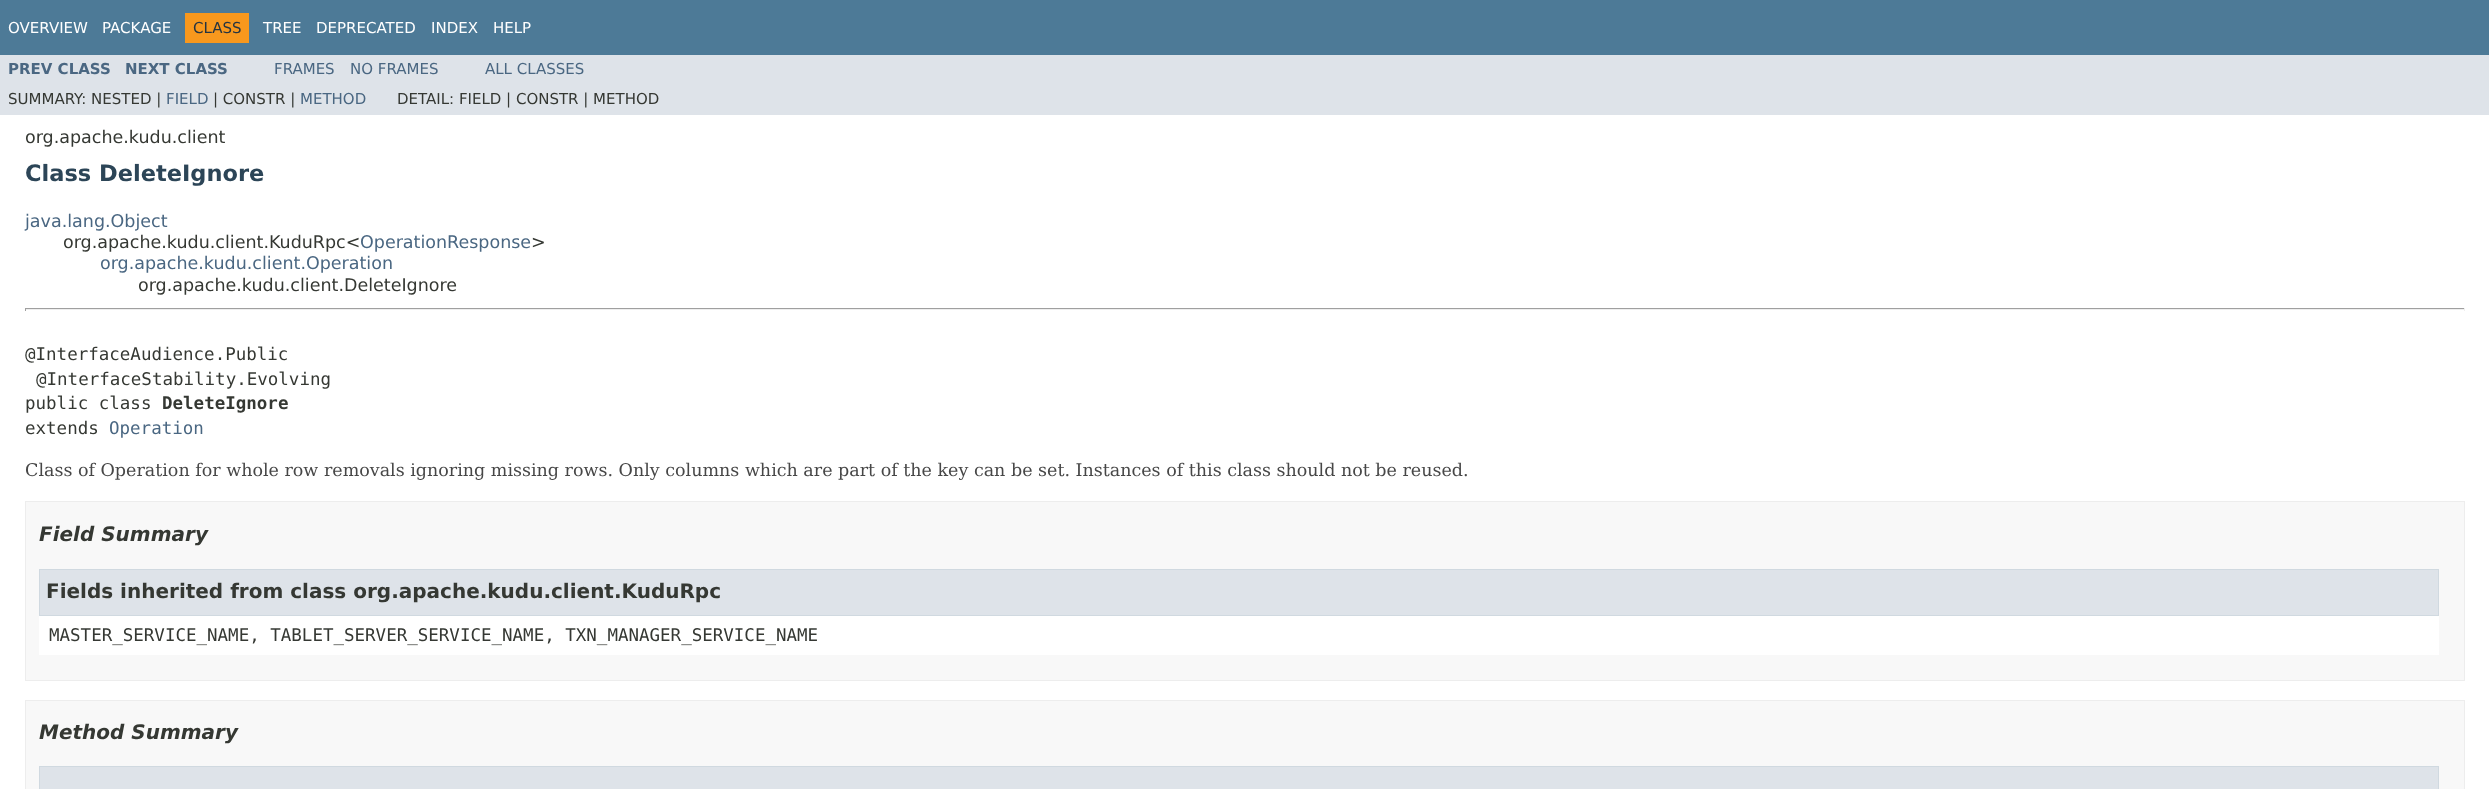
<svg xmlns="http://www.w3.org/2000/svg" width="2489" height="789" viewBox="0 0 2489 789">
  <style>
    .t1 { font: 15px DejaVu Sans; fill: #fff; }
    .t2 { font: 15px DejaVu Sans; fill: #253441; }
    .t3 { font: bold 15px DejaVu Sans; fill: #4a6782; }
    .t4 { font: 15px DejaVu Sans; fill: #4a6782; }
    .t5 { font: 15px DejaVu Sans; fill: #353833; }
    .t6 { font: 17.5px DejaVu Sans; fill: #353833; }
    .t7 { font: bold 22.5px DejaVu Sans; fill: #2c4557; }
    .t8 { font: 17.5px DejaVu Sans; fill: #4a6782; }
    .t9 { font: 17.5px DejaVu Sans Mono; fill: #353833; }
    .t10 { font: bold 17.5px DejaVu Sans Mono; fill: #353833; }
    .t11 { font: 17.5px DejaVu Sans Mono; fill: #4a6782; }
    .t12 { font: 17.5px DejaVu Serif; fill: #474747; }
    .t13 { font: italic bold 20px DejaVu Sans; fill: #353833; }
    .t14 { font: bold 20px DejaVu Sans; fill: #353833; }
  </style>
  <rect width="100%" height="100%" fill="#fff"/>
  <rect x="0" y="0" width="2489" height="55" fill="#4d7a97"/>
  <text x="8" y="33" class="t1">OVERVIEW</text>
  <text x="102" y="33" class="t1">PACKAGE</text>
  <rect x="185" y="13" width="64" height="30" fill="#f8981d"/>
  <text x="193" y="33" class="t2">CLASS</text>
  <text x="263" y="33" class="t1">TREE</text>
  <text x="316" y="33" class="t1">DEPRECATED</text>
  <text x="431" y="33" class="t1">INDEX</text>
  <text x="493" y="33" class="t1">HELP</text>
  <rect x="0" y="55" width="2489" height="60" fill="#dee3e9"/>
  <text x="8" y="74" class="t3">PREV CLASS</text>
  <text x="125" y="74" class="t3">NEXT CLASS</text>
  <text x="274" y="74" class="t4">FRAMES</text>
  <text x="350" y="74" class="t4">NO FRAMES</text>
  <text x="485" y="74" class="t4">ALL CLASSES</text>
  <text x="8" y="104" class="t5">SUMMARY: NESTED |</text>
  <text x="166" y="104" class="t4">FIELD</text>
  <text x="213" y="104" class="t5">| CONSTR |</text>
  <text x="300" y="104" class="t4">METHOD</text>
  <text x="397" y="104" class="t5">DETAIL: FIELD | CONSTR | METHOD</text>
  <text x="25" y="143" class="t6">org.apache.kudu.client</text>
  <text x="25" y="181" class="t7">Class DeleteIgnore</text>
  <text x="25" y="227" class="t8">java.lang.Object</text>
  <text x="63" y="248" class="t6">org.apache.kudu.client.KuduRpc&lt;</text>
  <text x="360" y="248" class="t8">OperationResponse</text>
  <text x="531" y="248" class="t6">&gt;</text>
  <text x="100" y="269" class="t8">org.apache.kudu.client.Operation</text>
  <text x="138" y="291" class="t6">org.apache.kudu.client.DeleteIgnore</text>
  <rect x="25" y="308" width="2440" height="1" fill="#9f9f9f"/>
  <rect x="2464" y="308" width="1" height="3" fill="#eee"/>
  <rect x="25" y="309" width="2440" height="1" fill="#eee"/>
  <rect x="25" y="308" width="1" height="3" fill="#9f9f9f"/>
  <text x="25" y="360" class="t9">@InterfaceAudience.Public</text>
  <text x="36" y="385" class="t9">@InterfaceStability.Evolving</text>
  <text x="25" y="409" class="t9">public class</text>
  <text x="162" y="409" class="t10">DeleteIgnore</text>
  <text x="25" y="434" class="t9">extends</text>
  <text x="109" y="434" class="t11">Operation</text>
  <text x="25" y="476" class="t12">Class of Operation for whole row removals ignoring missing rows. Only columns which are part of the key can be set. Instances of this class should not be reused.</text>
  <rect x="25.5" y="501.5" width="2439" height="179" fill="#f8f8f8" stroke="#ededed"/>
  <text x="39" y="541" class="t13">Field Summary</text>
  <rect x="39" y="616" width="2400" height="39" fill="#fff"/>
  <rect x="39.5" y="569.5" width="2399" height="46" fill="#dee3e9" stroke="#d0d9e0"/>
  <text x="46" y="598" class="t14">Fields inherited from class org.apache.kudu.client.KuduRpc</text>
  <text x="49" y="641" class="t9">MASTER_SERVICE_NAME, TABLET_SERVER_SERVICE_NAME, TXN_MANAGER_SERVICE_NAME</text>
  <rect x="25.5" y="700.5" width="2439" height="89" fill="#f8f8f8" stroke="#ededed"/>
  <text x="39" y="739" class="t13">Method Summary</text>
  <rect x="39.5" y="766.5" width="2399" height="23" fill="#dee3e9" stroke="#d0d9e0"/>
</svg>
